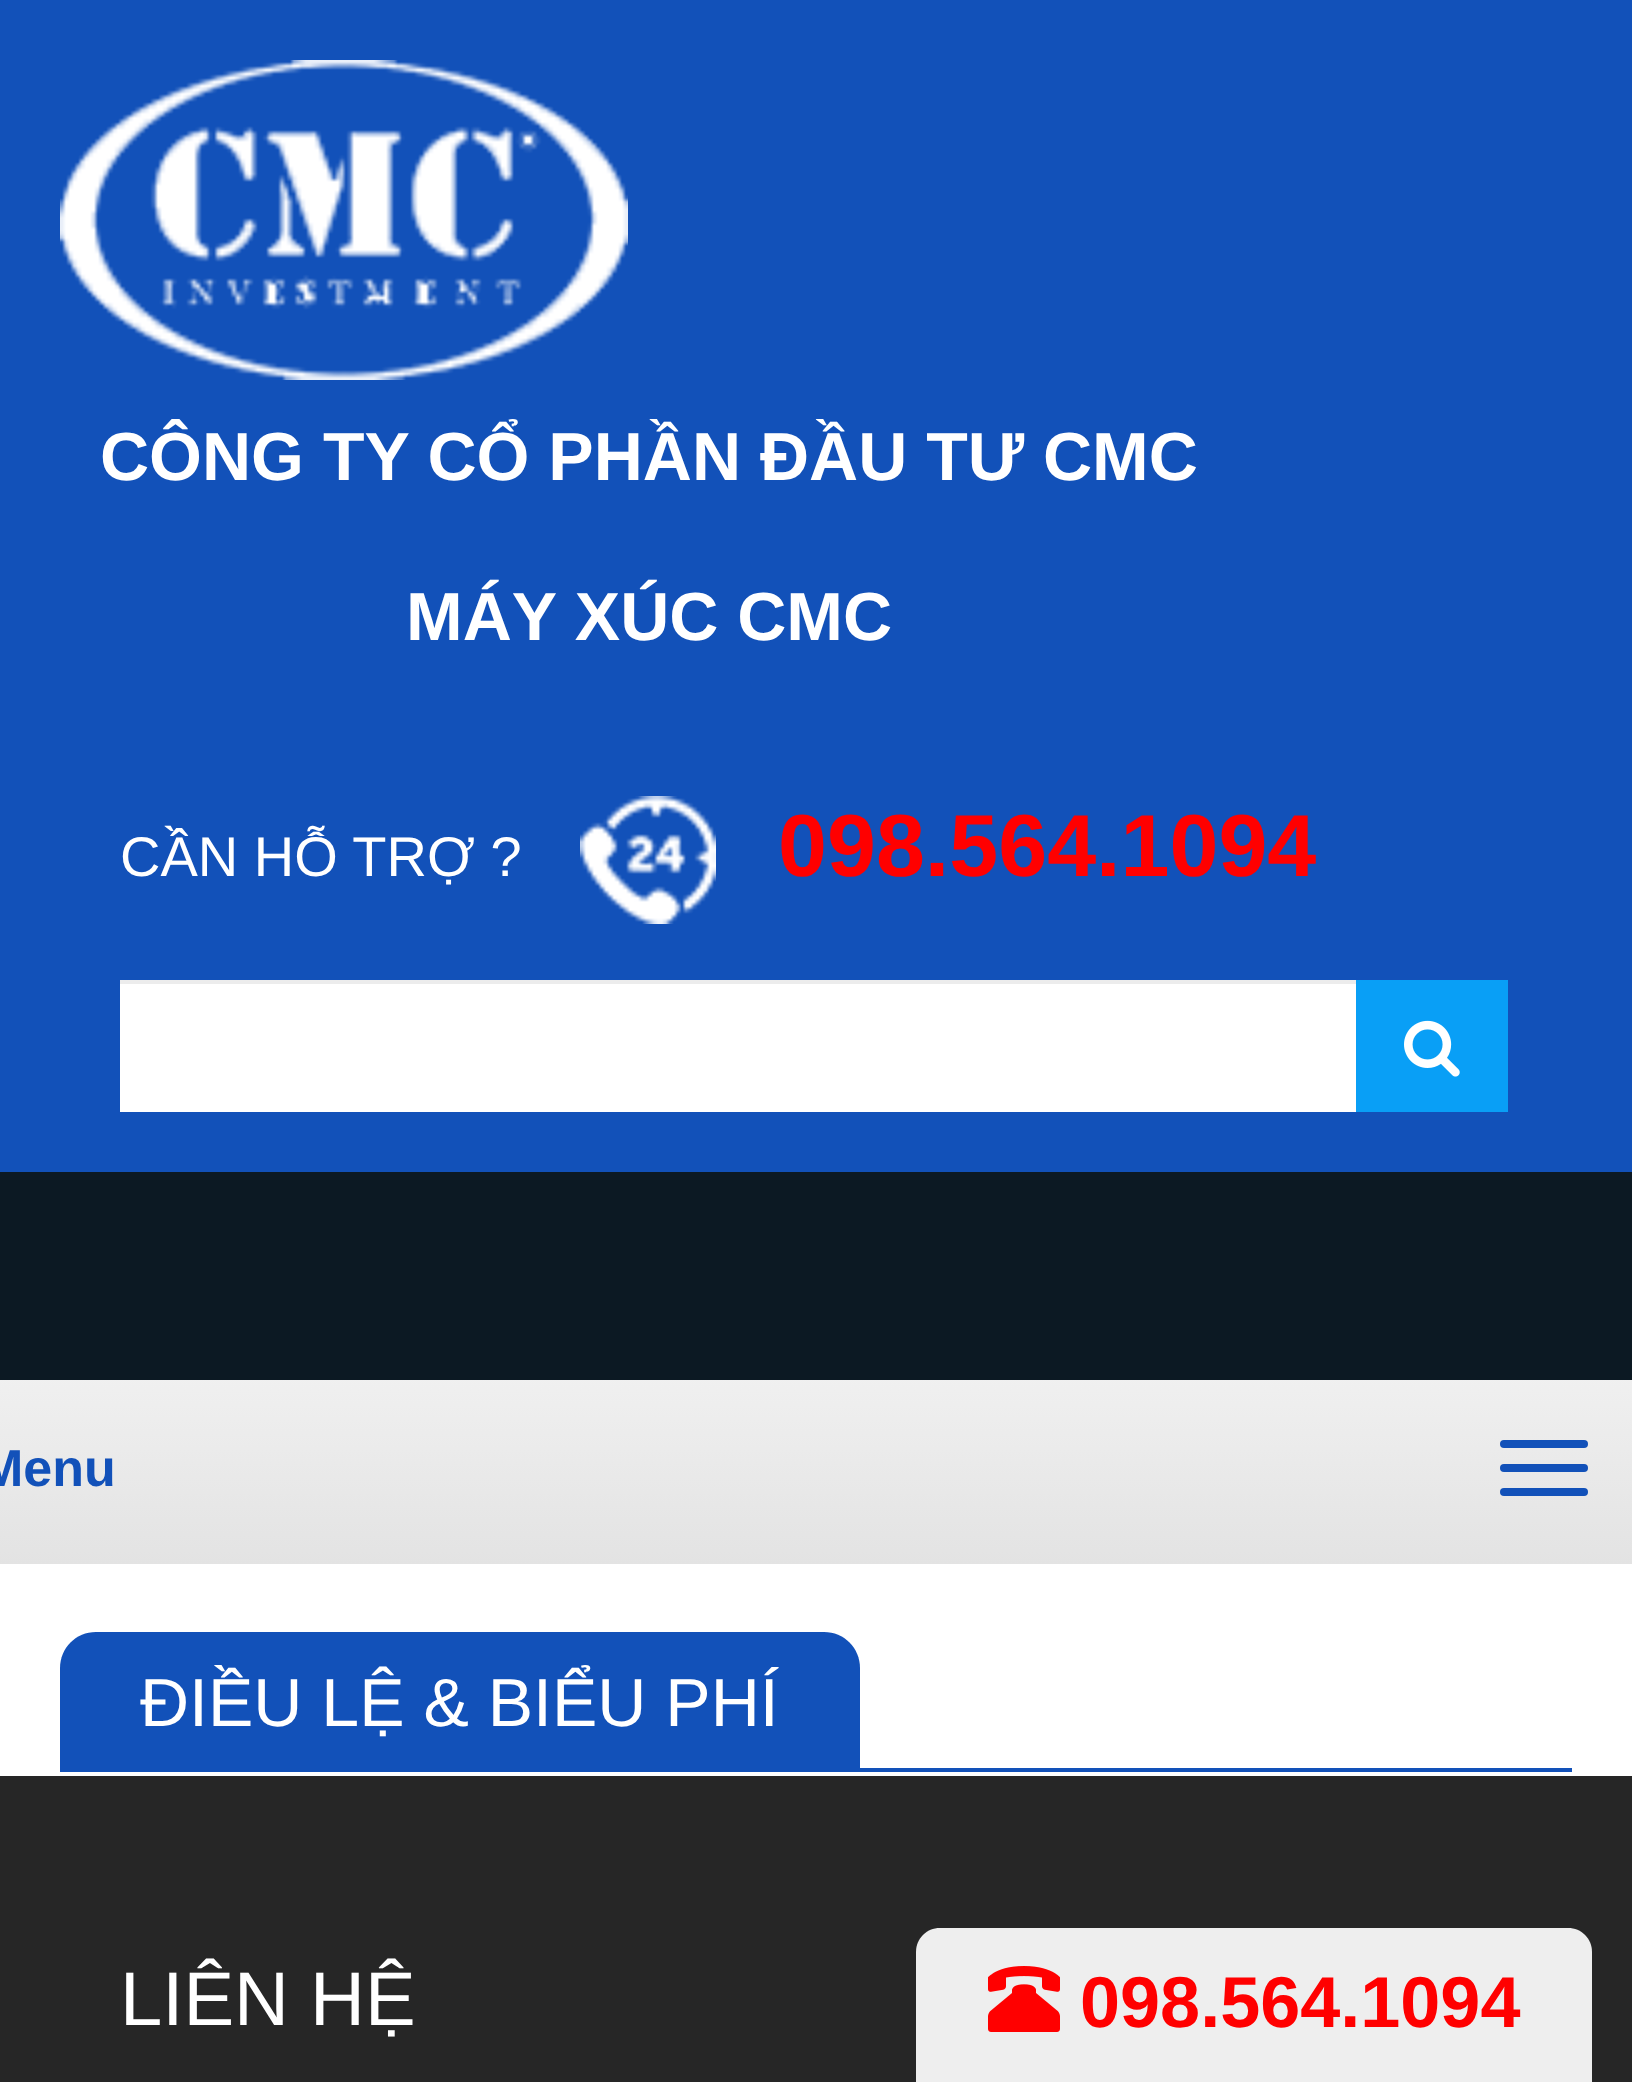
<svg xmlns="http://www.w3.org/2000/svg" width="1632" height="2082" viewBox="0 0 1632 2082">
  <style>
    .t1 { font: bold 68px Liberation Sans; fill: #fff; }
    .t2 { font: 56px Liberation Sans; fill: #fff; }
    .t3 { font: bold 88px Liberation Sans; fill: #f00; }
    .t4 { font: bold 52px Liberation Sans; fill: #1251b9; }
    .t5 { font: 68px Liberation Sans; fill: #fff; }
    .t6 { font: bold 72px Liberation Sans; fill: #f00; }
    .t7 { font: 76px Liberation Sans; fill: #fff; }
  </style>
  <defs>
    <linearGradient id="g1" gradientUnits="userSpaceOnUse" x1="816" y1="1172" x2="816" y2="1564"><stop offset="0" stop-color="#fefefe"/><stop offset="1" stop-color="#e3e3e3"/></linearGradient>
  </defs>
  <rect width="100%" height="100%" fill="#fff"/>
  <rect x="0" y="0" width="1632" height="1172" fill="#1251b9"/>
  <image x="60" y="60" width="568" height="320" href="images/1.png"/>
  <text x="100" y="480" class="t1">CÔNG TY CỔ PHẦN ĐẦU TƯ CMC</text>
  <text x="406" y="640" class="t1">MÁY XÚC CMC</text>
  <text x="120" y="876" class="t2">CẦN HỖ TRỢ ?</text>
  <image x="580" y="796" width="136" height="128" href="images/2.png"/>
  <text x="778" y="876" class="t3">098.564.1094</text>
  <rect x="120" y="984" width="1236" height="128" fill="#fff"/>
  <rect x="120" y="980" width="1236" height="4" fill="#ececec"/>
  <rect x="1356" y="980" width="152" height="132" fill="#099ff6"/>
  <image x="1404" y="1020" width="56" height="57" href="images/3.png"/>
  <rect x="0" y="1172" width="1632" height="208" fill="#0c1923"/>
  <rect x="0" y="1380" width="1632" height="184" fill="url(#g1)"/>
  <text x="-20" y="1486" class="t4">Menu</text>
  <rect x="1500" y="1440" width="88" height="8" rx="4" fill="#1251b9"/>
  <rect x="1500" y="1464" width="88" height="8" rx="4" fill="#1251b9"/>
  <rect x="1500" y="1488" width="88" height="8" rx="4" fill="#1251b9"/>
  <path d="M96 1632H824C844 1632 860 1648 860 1668V1768H60V1668C60 1648 76 1632 96 1632Z" fill="#1251b9"/>
  <text x="140" y="1726" class="t5">ĐIỀU LỆ &amp; BIỂU PHÍ</text>
  <rect x="60" y="1768" width="1512" height="4" fill="#1251b9"/>
  <rect x="0" y="1776" width="1632" height="306" fill="#262626"/>
  <path d="M940 1928H1568C1581.5 1928 1592 1938.5 1592 1952V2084H916V1952C916 1938.5 926.5 1928 940 1928Z" fill="#eee"/>
  <image x="988" y="1966" width="72" height="66" href="images/4.png"/>
  <text x="1080" y="2027" class="t6">098.564.1094</text>
  <text x="120" y="2025" class="t7">LIÊN HỆ</text>
</svg>
